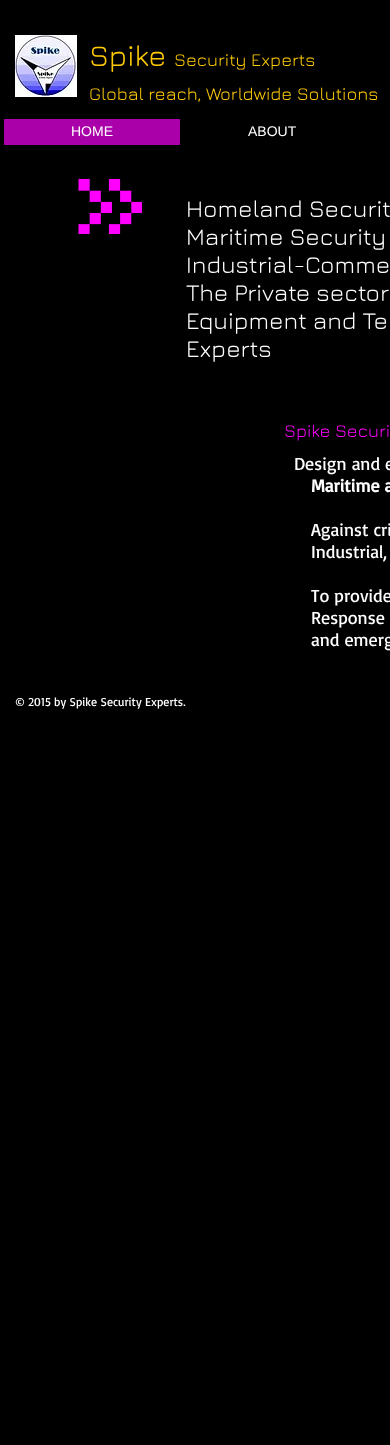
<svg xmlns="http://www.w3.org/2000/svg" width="390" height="1445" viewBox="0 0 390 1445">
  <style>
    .t1 { font: 30px Jura; fill: #ffcb05; }
    .t2 { font: 18px Jura; fill: #ffcb05; }
    .t3 { font: 14px Liberation Sans; fill: #fff; }
    .t4 { font: 24px Jura; fill: #fff; }
    .t5 { font: 18px Jura; fill: #f0f; }
    .t6 { font: 18px Basic; fill: #fff; }
    .t7 { font: bold 18px Basic; fill: #fff; }
    .t8 { font: 12px Basic; fill: #fff; }
  </style>
  <rect width="100%" height="100%" fill="#000"/>
  <image x="15" y="35" width="62" height="62" href="images/1.png"/>
  <text x="89" y="66" class="t1">Spike</text>
  <text x="174" y="66" class="t2">Security Experts</text>
  <text x="89" y="100" class="t2">Global reach, Worldwide Solutions</text>
  <rect x="4" y="119" width="176" height="26" fill="#a900a9"/>
  <text x="71" y="136" class="t3">HOME</text>
  <text x="248" y="136" class="t3">ABOUT</text>
  <image x="78" y="179" width="64" height="55" href="images/2.png"/>
  <text x="186" y="217" class="t4">Homeland Securit</text>
  <text x="186" y="245" class="t4">Maritime Security</text>
  <text x="186" y="273" class="t4">Industrial-Comme</text>
  <text x="186" y="301" class="t4">The Private sector</text>
  <text x="186" y="329" class="t4">Equipment and Te</text>
  <text x="186" y="357" class="t4">Experts</text>
  <text x="284" y="437" class="t5">Spike Securi</text>
  <text x="294" y="470" class="t6">Design and e</text>
  <text x="311" y="492" class="t7">Maritime a</text>
  <text x="311" y="536" class="t6">Against cri</text>
  <text x="311" y="558" class="t6">Industrial,</text>
  <text x="311" y="602" class="t6">To provide</text>
  <text x="311" y="624" class="t6">Response</text>
  <text x="311" y="646" class="t6">and emerg</text>
  <text x="15" y="706" class="t8">© 2015 by Spike Security Experts.</text>
</svg>
